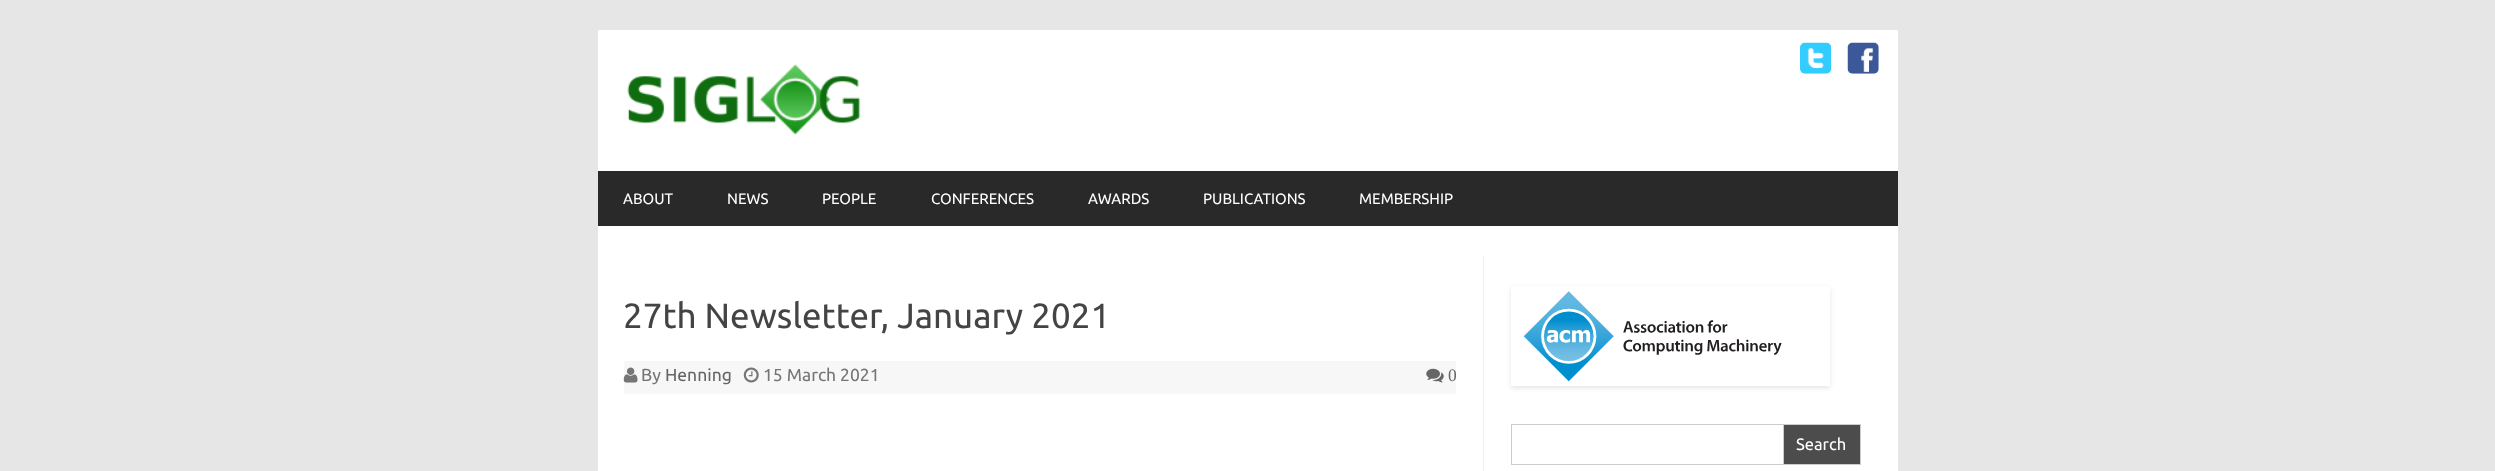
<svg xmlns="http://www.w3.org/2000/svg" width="2495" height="471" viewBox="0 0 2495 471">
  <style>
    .t1 { font: 15px Ubuntu; fill: #fff; }
    .t2 { font: 35px Ubuntu; fill: #444; }
    .t3 { font: 17.5px Ubuntu; fill: #757575; }
    .t4 { font: 17.5px Ubuntu; fill: #666; }
    .t5 { font: 17.5px Liberation Serif; fill: #666; }
    .t6 { font: 16.5px Ubuntu; fill: #fff; }
  </style>
  <defs>
    <clipPath id="clip1"><path d="M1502 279H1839V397H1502ZM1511 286H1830V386H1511Z" clip-rule="evenodd"/></clipPath>
  </defs>
  <rect width="100%" height="100%" fill="#e6e6e6"/>
  <rect x="598" y="30" width="1300" height="441" fill="#fff"/>
  <image x="1800" y="42" width="32" height="32" href="images/1.png"/>
  <image x="1847" y="42" width="32" height="32" href="images/2.png"/>
  <image x="627" y="64" width="234" height="71" href="images/3.png"/>
  <rect x="598" y="171" width="1300" height="55" fill="#292929"/>
  <text x="623" y="204" class="t1">ABOUT</text>
  <text x="727" y="204" class="t1">NEWS</text>
  <text x="822" y="204" class="t1">PEOPLE</text>
  <text x="931" y="204" class="t1">CONFERENCES</text>
  <text x="1088" y="204" class="t1">AWARDS</text>
  <text x="1203" y="204" class="t1">PUBLICATIONS</text>
  <text x="1359" y="204" class="t1">MEMBERSHIP</text>
  <rect x="1483" y="256" width="1" height="215" fill="#f1f1f1"/>
  <text x="623" y="328" class="t2">27th Newsletter, January 2021</text>
  <rect x="624" y="361" width="832" height="33" fill="#f7f7f7"/>
  <image x="623" y="367" width="15" height="16" href="images/4.png"/>
  <text x="641" y="381" class="t3">By</text>
  <text x="665" y="381" class="t4">Henning</text>
  <image x="743" y="367" width="16" height="16" href="images/5.png"/>
  <text x="763" y="381" class="t3">15 March 2021</text>
  <image x="1426" y="368" width="18" height="15" href="images/6.png"/>
  <text x="1448" y="381" class="t5">0</text>
  <g clip-path="url(#clip1)">
    <rect x="1511" y="288" width="319" height="100" fill="#0000001a" filter="blur(2.5px)"/>
  </g>
  <image x="1523" y="291" width="259" height="91" href="images/7.png"/>
  <rect x="1511.5" y="424.5" width="272" height="40" fill="none" stroke="#ccc"/>
  <rect x="1783.5" y="424.5" width="77" height="40" fill="#4c4c4c" stroke="#ccc"/>
  <text x="1796" y="450" class="t6">Search</text>
</svg>
